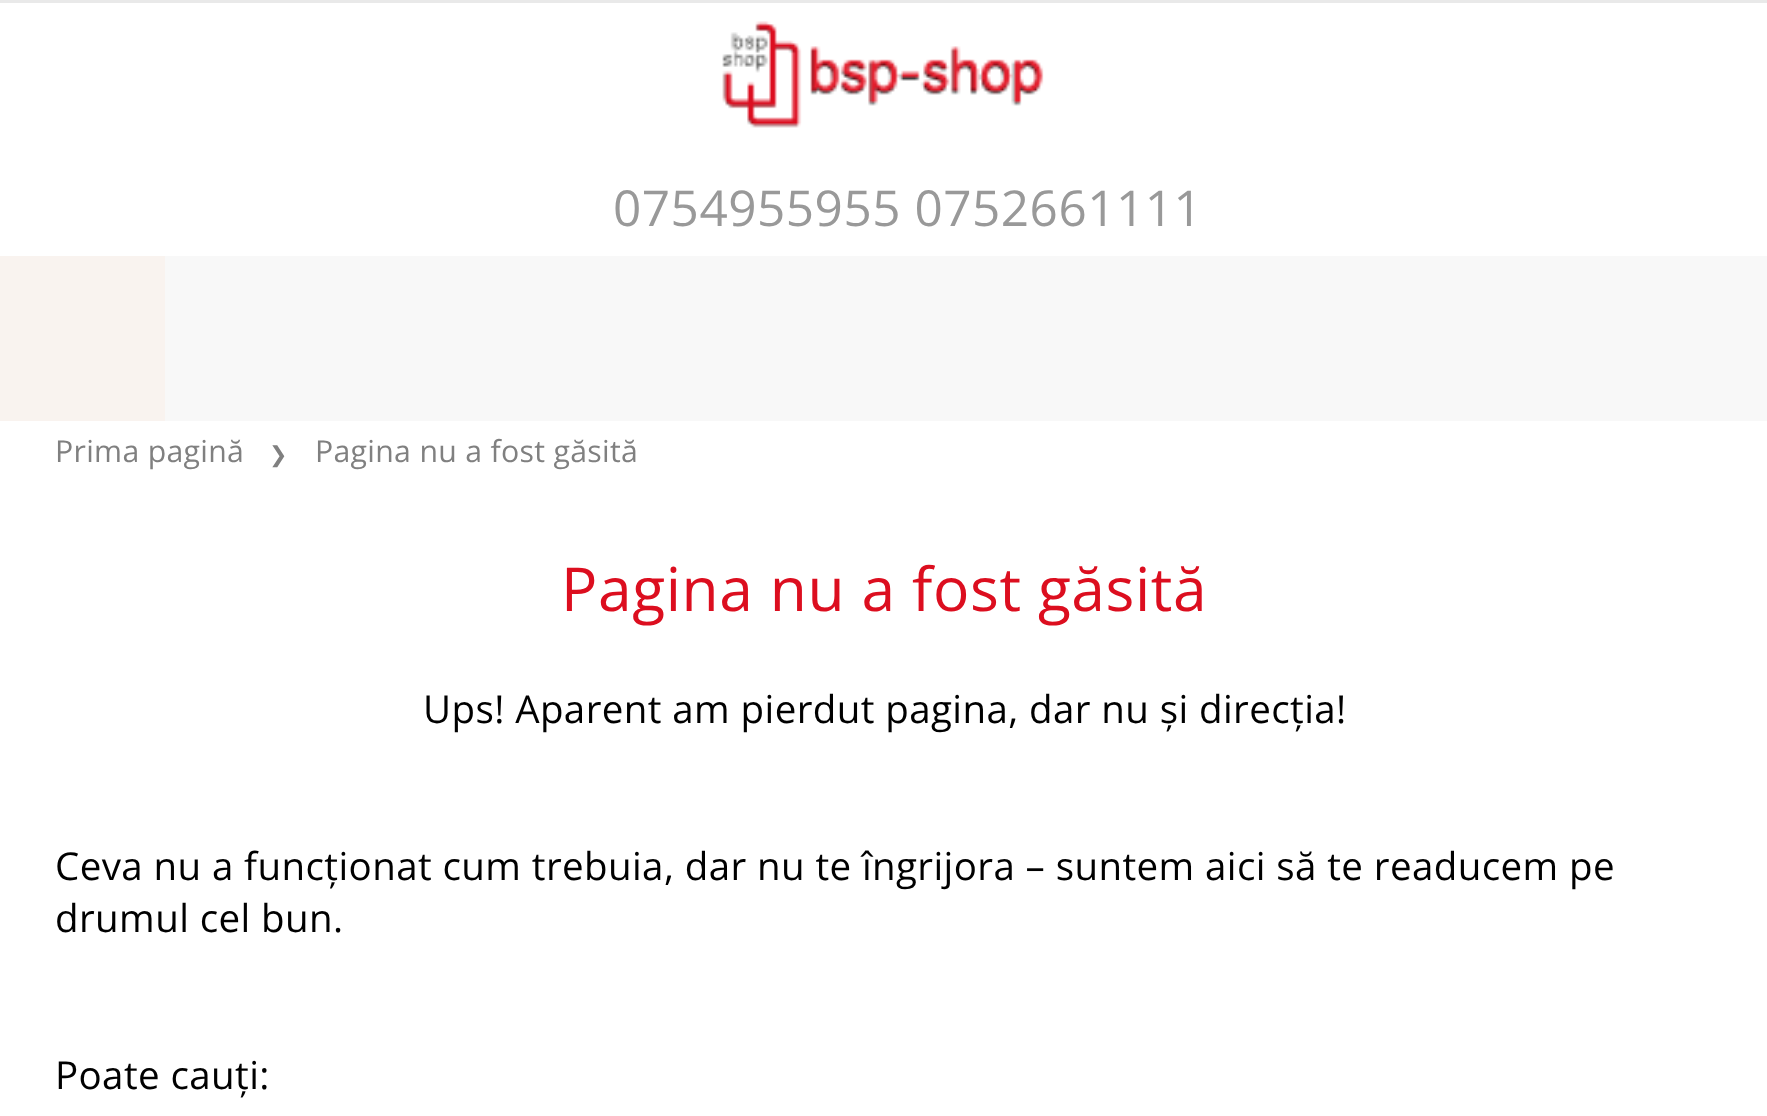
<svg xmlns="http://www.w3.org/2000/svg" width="1767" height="1116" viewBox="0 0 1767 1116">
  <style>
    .t1 { font: 49.5px Open Sans; letter-spacing: 0.5px; fill: #999; }
    .t2 { font: 30.25px Open Sans; letter-spacing: 0.3px; fill: #808080; }
    .t3 { font: 22px DejaVu Sans; fill: #808080; }
    .t4 { font: 60.5px Open Sans; letter-spacing: 0.6px; fill: #dc0e1f; }
    .t5 { font: 38.5px Open Sans; letter-spacing: 0.4px; fill: #000; }
  </style>
  <rect width="100%" height="100%" fill="#fff"/>
  <rect x="0" y="0" width="1767" height="3" fill="#e9e9e9"/>
  <image x="722" y="21" width="322" height="107" href="images/1.png"/>
  <text x="613" y="226" class="t1">0754955955 0752661111</text>
  <rect x="165" y="256" width="1602" height="165" fill="#f8f8f8"/>
  <rect x="0" y="256" width="165" height="165" fill="#f9f3ef"/>
  <text x="55" y="462" class="t2">Prima pagină</text>
  <text x="269" y="462" class="t3">❯</text>
  <text x="315" y="462" class="t2">Pagina nu a fost găsită</text>
  <text x="561" y="611" class="t4">Pagina nu a fost găsită</text>
  <text x="423" y="723" class="t5">Ups! Aparent am pierdut pagina, dar nu și direcția!</text>
  <text x="55" y="880" class="t5">Ceva nu a funcționat cum trebuia, dar nu te îngrijora – suntem aici să te readucem pe</text>
  <text x="55" y="932" class="t5">drumul cel bun.</text>
  <text x="55" y="1089" class="t5">Poate cauți:</text>
</svg>
